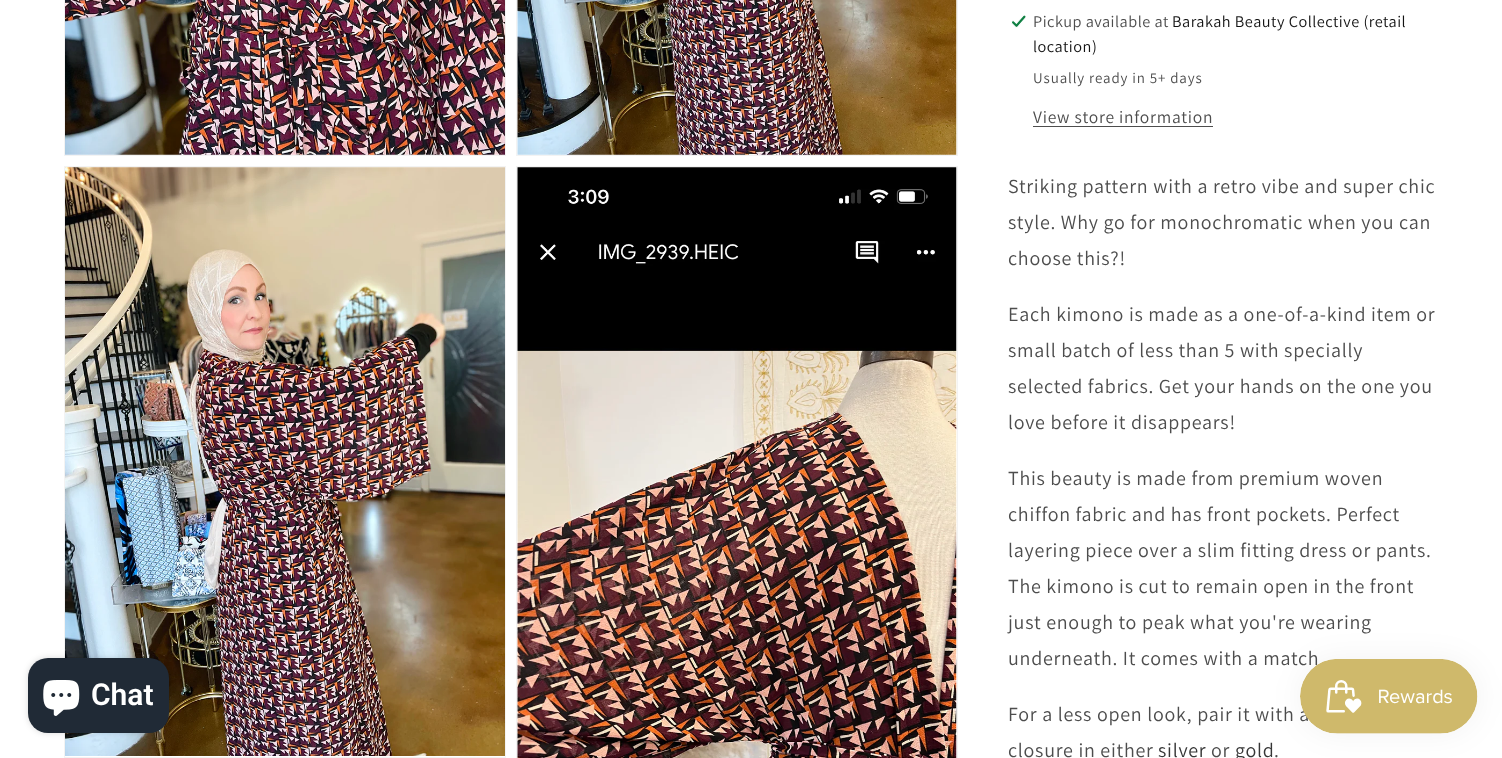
<svg xmlns="http://www.w3.org/2000/svg" width="1502" height="758" viewBox="0 0 1502 758">
  <style>
    .t1 { font: 16.25px Assistant; letter-spacing: 0.5px; fill: #4d4d4d; }
    .t2 { font: 16.25px Assistant; letter-spacing: 0.5px; fill: #121212; }
    .t3 { font: 15px Assistant; letter-spacing: 0.9px; fill: #4d4d4d; }
    .t4 { font: 17.5px Assistant; letter-spacing: 0.75px; fill: #4d4d4d; }
    .t5 { font: 20px Assistant; letter-spacing: 0.75px; fill: #4d4d4d; }
    .t6 { font: 20px Assistant; letter-spacing: 0.75px; fill: #363636; }
    .t7 { font: 600 30px Roboto; fill: #fff; }
  </style>
  <rect width="100%" height="100%" fill="#fff"/>
  <rect x="64.5" y="-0.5" width="441" height="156" fill="none" stroke="#f3f3f3"/>
  <image x="65" y="0" width="440" height="155" href="images/1.png"/>
  <rect x="516.5" y="-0.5" width="441" height="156" fill="none" stroke="#f3f3f3"/>
  <image x="517" y="0" width="440" height="155" href="images/2.png"/>
  <rect x="64.5" y="166.5" width="441" height="591" fill="none" stroke="#f3f3f3"/>
  <image x="65" y="167" width="440" height="589" href="images/3.png"/>
  <rect x="516.5" y="166.5" width="441" height="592" fill="none" stroke="#f3f3f3"/>
  <image x="517" y="167" width="440" height="591" href="images/4.png"/>
  <image x="1011" y="15" width="15" height="13" href="images/5.png"/>
  <text x="1033" y="27" class="t1">Pickup available at</text>
  <text x="1172" y="27" class="t2">Barakah Beauty Collective (retail</text>
  <text x="1033" y="52" class="t2">location)</text>
  <text x="1033" y="83" class="t3">Usually ready in 5+ days</text>
  <text x="1033" y="123" class="t4">View store information</text>
  <rect x="1033" y="126" width="180" height="1" fill="#4d4d4d"/>
  <text x="1008" y="193" class="t5">Striking pattern with a retro vibe and super chic</text>
  <text x="1008" y="229" class="t5">style. Why go for monochromatic when you can</text>
  <text x="1008" y="265" class="t5">choose this?!</text>
  <text x="1008" y="321" class="t5">Each kimono is made as a one-of-a-kind item or</text>
  <text x="1008" y="357" class="t5">small batch of less than 5 with specially</text>
  <text x="1008" y="393" class="t5">selected fabrics. Get your hands on the one you</text>
  <text x="1008" y="429" class="t5">love before it disappears!</text>
  <text x="1008" y="485" class="t5">This beauty is made from premium woven</text>
  <text x="1008" y="521" class="t5">chiffon fabric and has front pockets. Perfect</text>
  <text x="1008" y="557" class="t5">layering piece over a slim fitting dress or pants.</text>
  <text x="1008" y="593" class="t5">The kimono is cut to remain open in the front</text>
  <text x="1008" y="629" class="t5">just enough to peak what you're wearing</text>
  <text x="1008" y="665" class="t5">underneath. It comes with a match</text>
  <text x="1008" y="721" class="t5">For a less open look, pair it with a</text>
  <text x="1008" y="757" class="t5">closure in either</text>
  <text x="1158" y="757" class="t6">silver</text>
  <text x="1211" y="757" class="t5">or</text>
  <text x="1235" y="757" class="t6">gold</text>
  <text x="1274" y="757" class="t5">.</text>
  <rect x="28" y="658" width="141" height="75" rx="20" fill="#00000026" filter="blur(3px)"/>
  <rect x="28" y="658" width="141" height="75" rx="20" fill="#202a36"/>
  <image x="43" y="680" width="37" height="36" href="images/6.png"/>
  <text x="91" y="705" class="t7">Chat</text>
  <rect x="1300" y="659" width="178" height="75" rx="37.5" fill="#0000000d" filter="blur(15.5px)"/>
  <image x="1300" y="659" width="178" height="75" href="images/7.png"/>
</svg>
